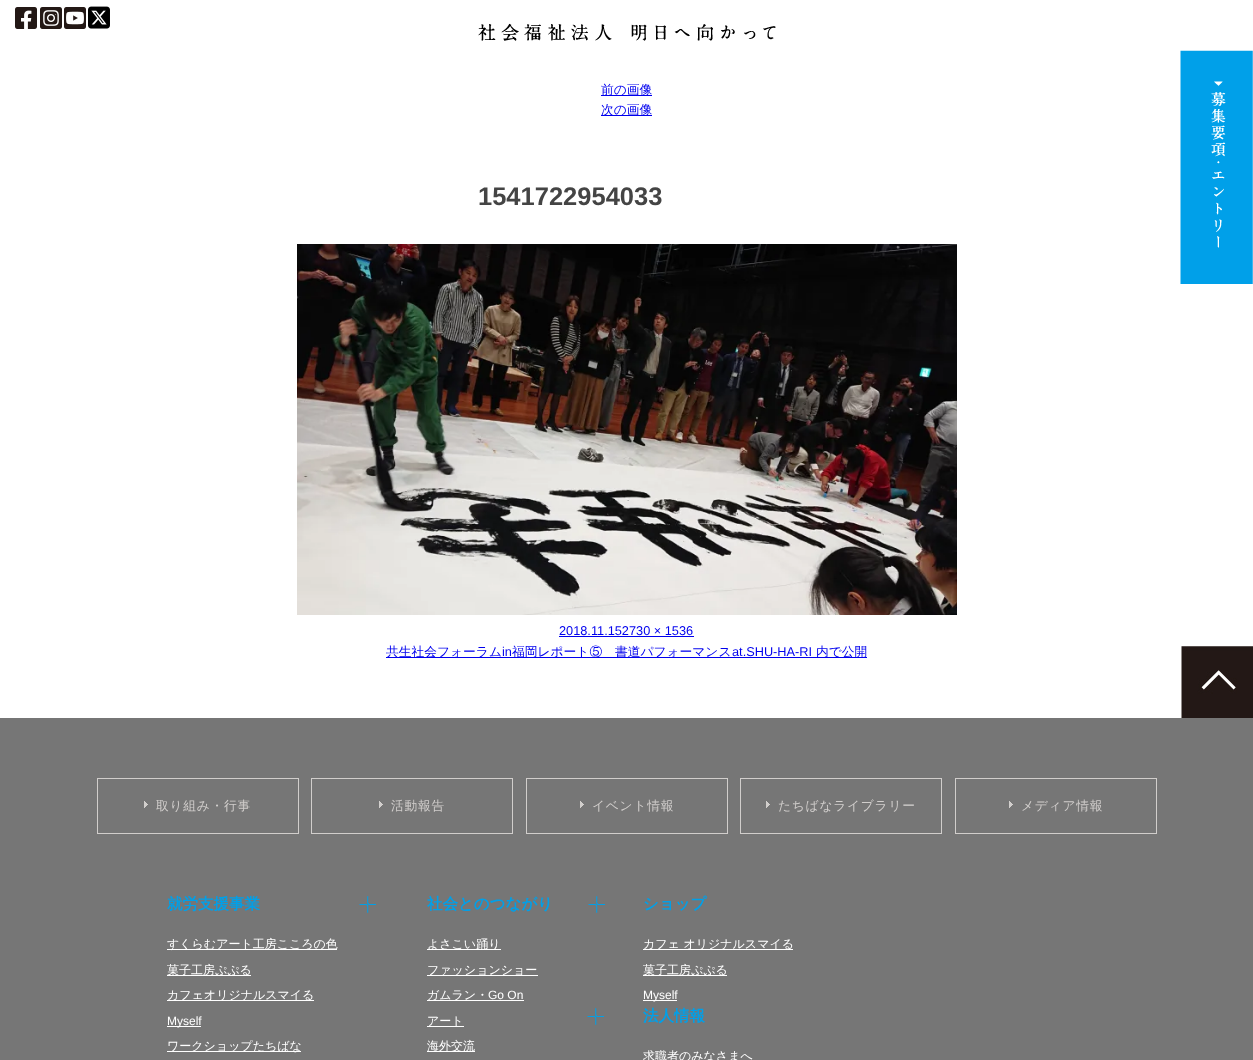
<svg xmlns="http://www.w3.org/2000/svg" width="1253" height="1060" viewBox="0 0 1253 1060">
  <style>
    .t1 { font: 500 12.75px WenQuanYi Zen Hei; fill: #00e; }
    .t2 { font: bold 25.5px Liberation Sans; fill: #444; }
    .t3 { font: 12.75px Liberation Sans; fill: #00e; }
    .t4 { font: 500 12.75px WenQuanYi Zen Hei; letter-spacing: 0.75px; fill: #d1cecc; }
    .t5 { font: bold 15.5px WenQuanYi Zen Hei; fill: #00a0e9; }
    .t6 { font: 500 12px WenQuanYi Zen Hei; fill: #fff; }
    .t7 { font: 12px Liberation Sans; fill: #fff; }
  </style>
  <rect width="100%" height="100%" fill="#fff"/>
  <image x="15" y="7" width="22" height="22" href="images/1.png"/>
  <image x="40" y="7" width="22" height="22" href="images/2.png"/>
  <image x="64" y="7" width="22" height="22" href="images/3.png"/>
  <image x="88" y="6" width="22" height="23" href="images/4.png"/>
  <image x="478" y="23" width="298" height="18" href="images/5.png"/>
  <rect x="601" y="95" width="51" height="1" fill="#00e"/>
  <text x="601" y="94" class="t1">前の画像</text>
  <rect x="601" y="115" width="51" height="1" fill="#00e"/>
  <text x="601" y="114" class="t1">次の画像</text>
  <text x="478" y="205" class="t2">1541722954033</text>
  <image x="297" y="244" width="660" height="371" href="images/6.png"/>
  <text x="559" y="635" class="t3">2018.11.152730 × 1536</text>
  <rect x="559" y="636" width="135" height="1" fill="#00e"/>
  <rect x="386" y="657" width="481" height="1" fill="#00e"/>
  <text x="386" y="656" class="t1">共生社会フォーラム</text>
  <text x="502" y="656" class="t3">in</text>
  <text x="512" y="656" class="t1">福岡レポート⑤　書道パフォーマンス</text>
  <text x="732" y="656" class="t3">at.SHU-HA-RI</text>
  <text x="816" y="656" class="t1">内で公開</text>
  <image x="1180" y="50" width="73" height="234" href="images/7.png"/>
  <image x="1181" y="646" width="72" height="72" href="images/8.png"/>
  <rect x="0" y="718" width="1253" height="342" fill="#767676"/>
  <rect x="97.5" y="778.5" width="201" height="55" fill="none" stroke="#d1cecc"/>
  <image x="144" y="801" width="4" height="7" href="images/9.png"/>
  <text x="156" y="810" class="t4">取り組み・行事</text>
  <rect x="311.5" y="778.5" width="201" height="55" fill="none" stroke="#d1cecc"/>
  <image x="379" y="801" width="4" height="7" href="images/9.png"/>
  <text x="391" y="810" class="t4">活動報告</text>
  <rect x="526.5" y="778.5" width="201" height="55" fill="none" stroke="#d1cecc"/>
  <image x="580" y="801" width="4" height="7" href="images/9.png"/>
  <text x="592" y="810" class="t4">イベント情報</text>
  <rect x="740.5" y="778.5" width="201" height="55" fill="none" stroke="#d1cecc"/>
  <image x="766" y="801" width="4" height="7" href="images/9.png"/>
  <text x="778" y="810" class="t4">たちばなライブラリー</text>
  <rect x="955.5" y="778.5" width="201" height="55" fill="none" stroke="#d1cecc"/>
  <image x="1009" y="801" width="4" height="7" href="images/9.png"/>
  <text x="1021" y="810" class="t4">メディア情報</text>
  <text x="167" y="909" class="t5">就労支援事業</text>
  <rect x="167" y="949" width="170" height="1" fill="#fff"/>
  <text x="167" y="948" class="t6">すくらむアート工房こころの色</text>
  <rect x="167" y="975" width="84" height="1" fill="#fff"/>
  <text x="167" y="974" class="t6">菓子工房ぷぷる</text>
  <rect x="167" y="1000" width="147" height="1" fill="#fff"/>
  <text x="167" y="999" class="t6">カフェオリジナルスマイる</text>
  <rect x="167" y="1026" width="34" height="1" fill="#fff"/>
  <text x="167" y="1025" class="t7">Myself</text>
  <rect x="167" y="1051" width="134" height="1" fill="#fff"/>
  <text x="167" y="1050" class="t6">ワークショップたちばな</text>
  <image x="359" y="896" width="17" height="17" href="images/10.png"/>
  <text x="427" y="909" class="t5">社会とのつながり</text>
  <rect x="427" y="949" width="74" height="1" fill="#fff"/>
  <text x="427" y="948" class="t6">よさこい踊り</text>
  <rect x="427" y="975" width="111" height="1" fill="#fff"/>
  <text x="427" y="974" class="t6">ファッションショー</text>
  <rect x="427" y="1000" width="97" height="1" fill="#fff"/>
  <text x="427" y="999" class="t6">ガムラン・</text>
  <text x="488" y="999" class="t7">Go On</text>
  <rect x="427" y="1026" width="37" height="1" fill="#fff"/>
  <text x="427" y="1025" class="t6">アート</text>
  <rect x="427" y="1051" width="48" height="1" fill="#fff"/>
  <text x="427" y="1050" class="t6">海外交流</text>
  <image x="588" y="896" width="17" height="17" href="images/10.png"/>
  <text x="643" y="909" class="t5">ショップ</text>
  <rect x="643" y="949" width="150" height="1" fill="#fff"/>
  <text x="643" y="948" class="t6">カフェ オリジナルスマイる</text>
  <rect x="643" y="975" width="84" height="1" fill="#fff"/>
  <text x="643" y="974" class="t6">菓子工房ぷぷる</text>
  <rect x="643" y="1000" width="34" height="1" fill="#fff"/>
  <text x="643" y="999" class="t7">Myself</text>
  <image x="587" y="1008" width="17" height="17" href="images/10.png"/>
  <text x="643" y="1021" class="t5">法人情報</text>
  <text x="643" y="1060" class="t6">求職者のみなさまへ</text>
</svg>
